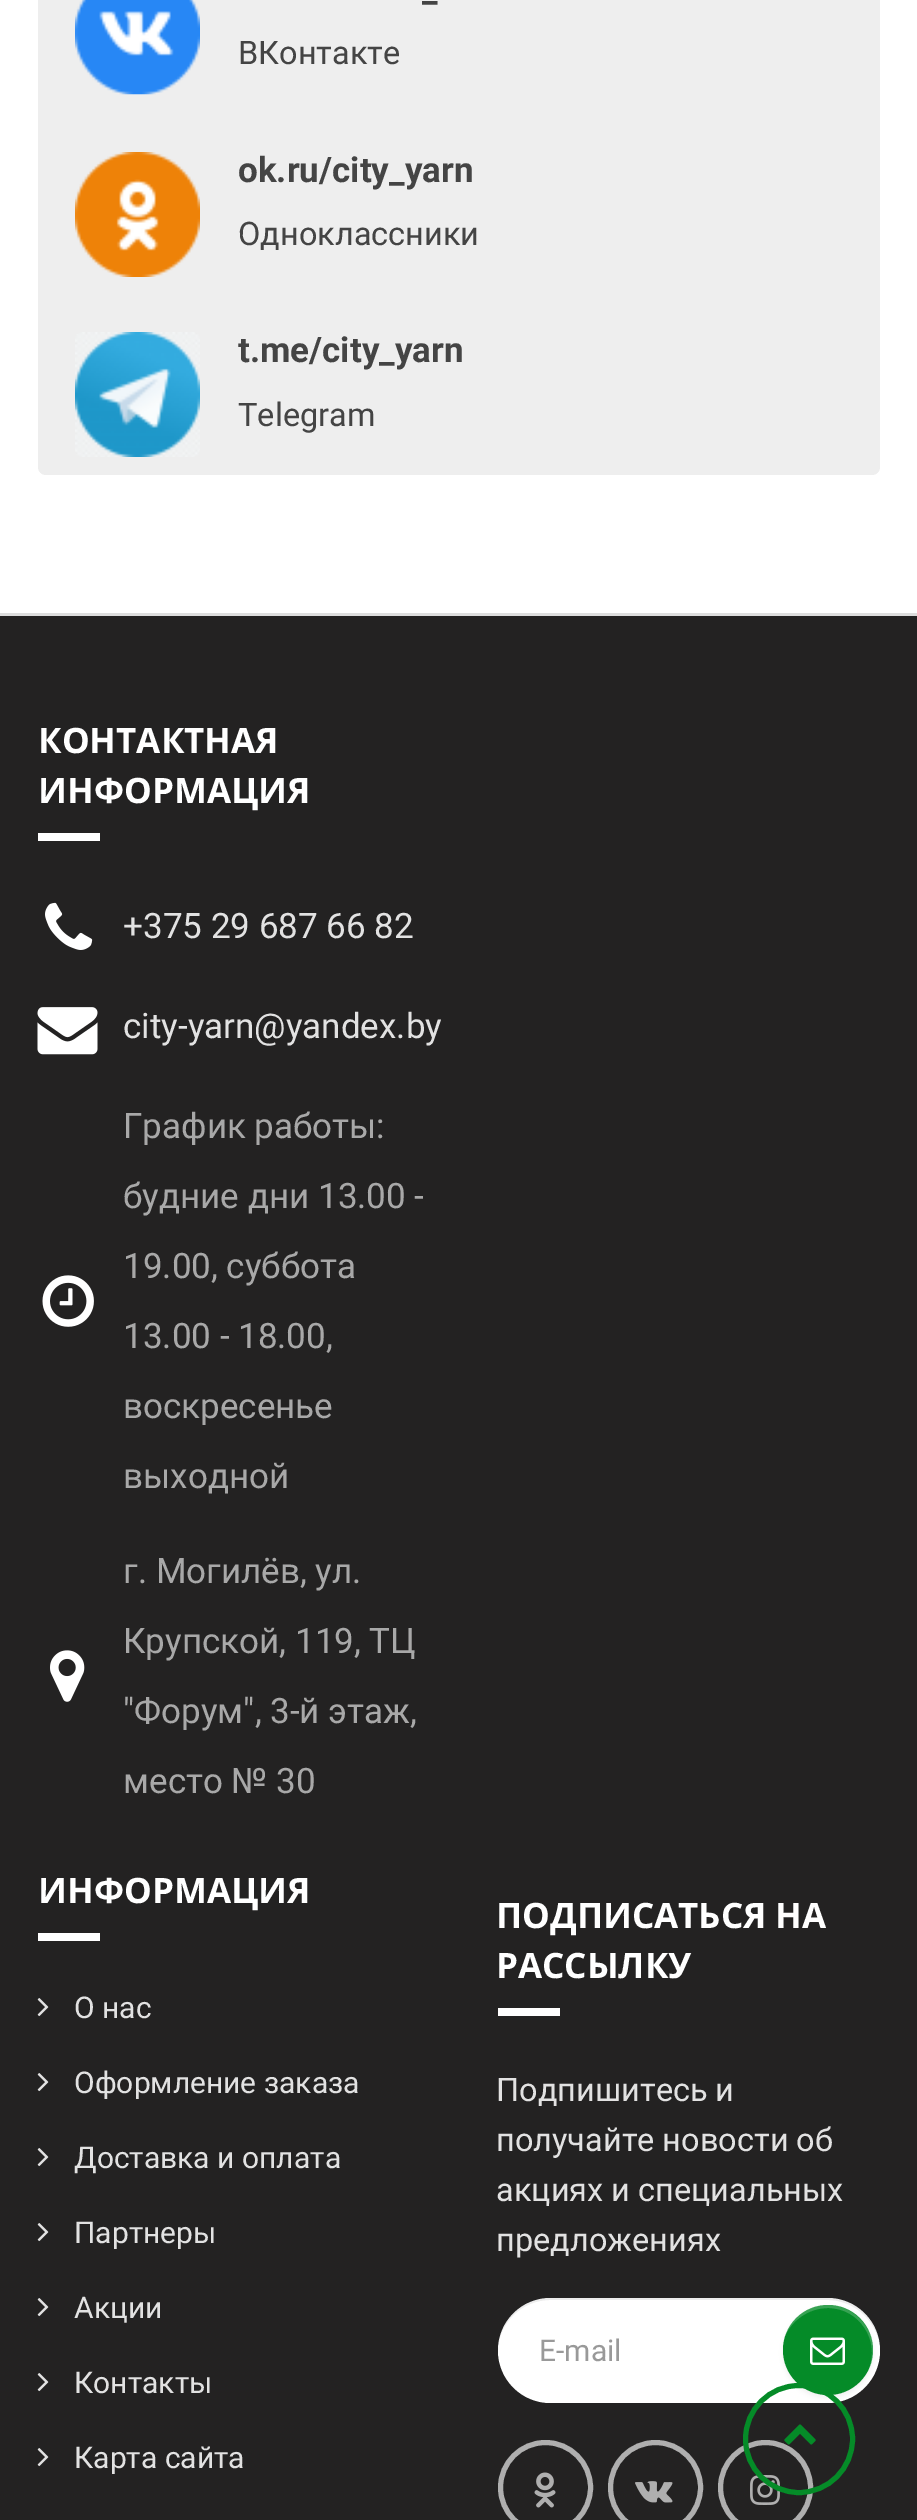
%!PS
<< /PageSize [917 2520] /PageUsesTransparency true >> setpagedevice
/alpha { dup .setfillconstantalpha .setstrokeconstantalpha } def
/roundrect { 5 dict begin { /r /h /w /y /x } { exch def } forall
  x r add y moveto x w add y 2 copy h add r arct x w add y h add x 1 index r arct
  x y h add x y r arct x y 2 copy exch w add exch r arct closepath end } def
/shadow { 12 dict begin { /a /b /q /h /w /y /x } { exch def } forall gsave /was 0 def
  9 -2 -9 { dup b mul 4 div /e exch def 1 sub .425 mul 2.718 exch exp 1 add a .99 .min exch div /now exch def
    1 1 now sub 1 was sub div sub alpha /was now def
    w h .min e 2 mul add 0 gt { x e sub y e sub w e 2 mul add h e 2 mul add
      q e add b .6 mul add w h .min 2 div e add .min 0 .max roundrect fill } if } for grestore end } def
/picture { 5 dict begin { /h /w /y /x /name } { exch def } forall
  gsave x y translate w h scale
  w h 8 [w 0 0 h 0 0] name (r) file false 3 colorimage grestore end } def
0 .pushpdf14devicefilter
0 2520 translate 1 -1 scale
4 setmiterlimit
1 setgray
0 0 917 2520 rectfill
0.933 setgray
38 -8 842 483 8 roundrect fill
(img1.rgb) 75 0 125 95 picture
/Roboto-Bold [35 0 0 -35 0 0] selectfont
0.267 setgray
422 1 moveto (_) show
/Roboto-Regular [32.5 0 0 -32.5 0 0] selectfont
238 64 moveto (ВКонтакте) show
(img2.rgb) 75 152 125 125 picture
/Roboto-Bold [35 0 0 -35 0 0] selectfont
238 182 moveto (ok.ru/city_yarn) show
/Roboto-Regular [32.5 0 0 -32.5 0 0] selectfont
238 245 moveto (Одноклассники) show
(img3.rgb) 75 332 125 125 picture
/Roboto-Bold [35 0 0 -35 0 0] selectfont
238 362 moveto (t.me/city_yarn) show
/Roboto-Regular [32.5 0 0 -32.5 0 0] selectfont
238 426 moveto (Telegram) show
0.137 0.133 0.133 setrgbcolor
0 616 917 1904 rectfill
0.867 setgray
0 613 917 3 rectfill
/OpenSans-Bold [35 0 0 -35 0 0] selectfont
1 setgray
38 753 moveto (КОНТАКТНАЯ) show
38 803 moveto (ИНФОРМАЦИЯ) show
38 833 62 8 rectfill
(img4.rgb) 45 902 48 48 picture
/Roboto-Regular [35 0 0 -35 0 0] selectfont
0.886 setgray
123 938 moveto (+375 29 687 66 82) show
(img5.rgb) 37 1007 61 48 picture
123 1038 moveto (city-yarn@yandex.by) show
0.659 setgray
123 1138 moveto (График работы:) show
123 1208 moveto (будние дни 13.00 -) show
123 1278 moveto (19.00, суббота) show
(img6.rgb) 42 1275 52 52 picture
123 1348 moveto (13.00 - 18.00,) show
123 1418 moveto (воскресенье) show
123 1488 moveto (выходной) show
123 1583 moveto (г. Могилёв, ул.) show
123 1653 moveto (Крупской, 119, ТЦ) show
(img7.rgb) 50 1650 35 52 picture
123 1723 moveto ("Форум", 3-й этаж,) show
123 1793 moveto (место № 30) show
/OpenSans-Bold [35 0 0 -35 0 0] selectfont
1 setgray
38 1903 moveto (ИНФОРМАЦИЯ) show
38 1933 62 8 rectfill
(img8.rgb) 37 1998 12 19 picture
/Roboto-Regular [30 0 0 -30 0 0] selectfont
0.886 setgray
74 2018 moveto (О нас) show
(img8.rgb) 37 2073 12 19 picture
74 2093 moveto (Оформление заказа) show
(img8.rgb) 37 2148 12 19 picture
74 2168 moveto (Доставка и оплата) show
(img8.rgb) 37 2223 12 19 picture
74 2243 moveto (Партнеры) show
(img8.rgb) 37 2298 12 19 picture
74 2318 moveto (Акции) show
(img8.rgb) 37 2373 12 19 picture
74 2393 moveto (Контакты) show
(img8.rgb) 37 2448 12 19 picture
74 2468 moveto (Карта сайта) show
/OpenSans-Bold [35 0 0 -35 0 0] selectfont
1 setgray
496 1928 moveto (ПОДПИСАТЬСЯ НА) show
496 1978 moveto (РАССЫЛКУ) show
498 2008 62 8 rectfill
/Roboto-Regular [32.5 0 0 -32.5 0 0] selectfont
0.886 setgray
496 2101 moveto (Подпишитесь и) show
496 2151 moveto (получайте новости об) show
496 2201 moveto (акциях и специальных) show
496 2251 moveto (предложениях) show
1 setgray
498 2298 382 105 52.5 roundrect fill
0.07 alpha
0 setgray
newpath 550 2300 moveto 828 2300 lineto 856 2300 880 2324 880 2351 curveto 880 2350 lineto 880 2322 856 2298 828 2298 curveto 550 2298 lineto 522 2298 498 2322 498 2350 curveto 498 2351 lineto 498 2324 521 2300 550 2300 curveto closepath fill
/Roboto-Regular [30 0 0 -30 0 0] selectfont
1 alpha
0.6 setgray
539 2361 moveto (E-mail) show
0 setgray
783 2308 90 90 45 2.5 0.05 shadow
0.02 0.545 0.157 setrgbcolor
newpath 828 2350 45 0 360 arc closepath fill
0.2 alpha
1 setgray
newpath 828 2308 moveto 860 2308 880 2341 869 2369 curveto 888 2328 839 2286 801 2314 curveto 794 2319 788 2327 785 2336 curveto 792 2320 809 2308 828 2308 curveto closepath fill
1 alpha
(img9.rgb) 810 2337 35 28 picture
0.686 setgray
5 setlinewidth
newpath 545.5 2487.5 45 0 360 arc closepath stroke
(img10.rgb) 534 2472 22 36 picture
newpath 655.5 2487.5 45 0 360 arc closepath stroke
(img11.rgb) 635 2481 38 22 picture
newpath 765.5 2487.5 45 0 360 arc closepath stroke
(img12.rgb) 750 2475 30 30 picture
0.02 0.545 0.157 setrgbcolor
newpath 799 2439 53.5 0 360 arc closepath stroke
(img13.rgb) 784 2424 32 21 picture
.poppdf14devicefilter showpage
